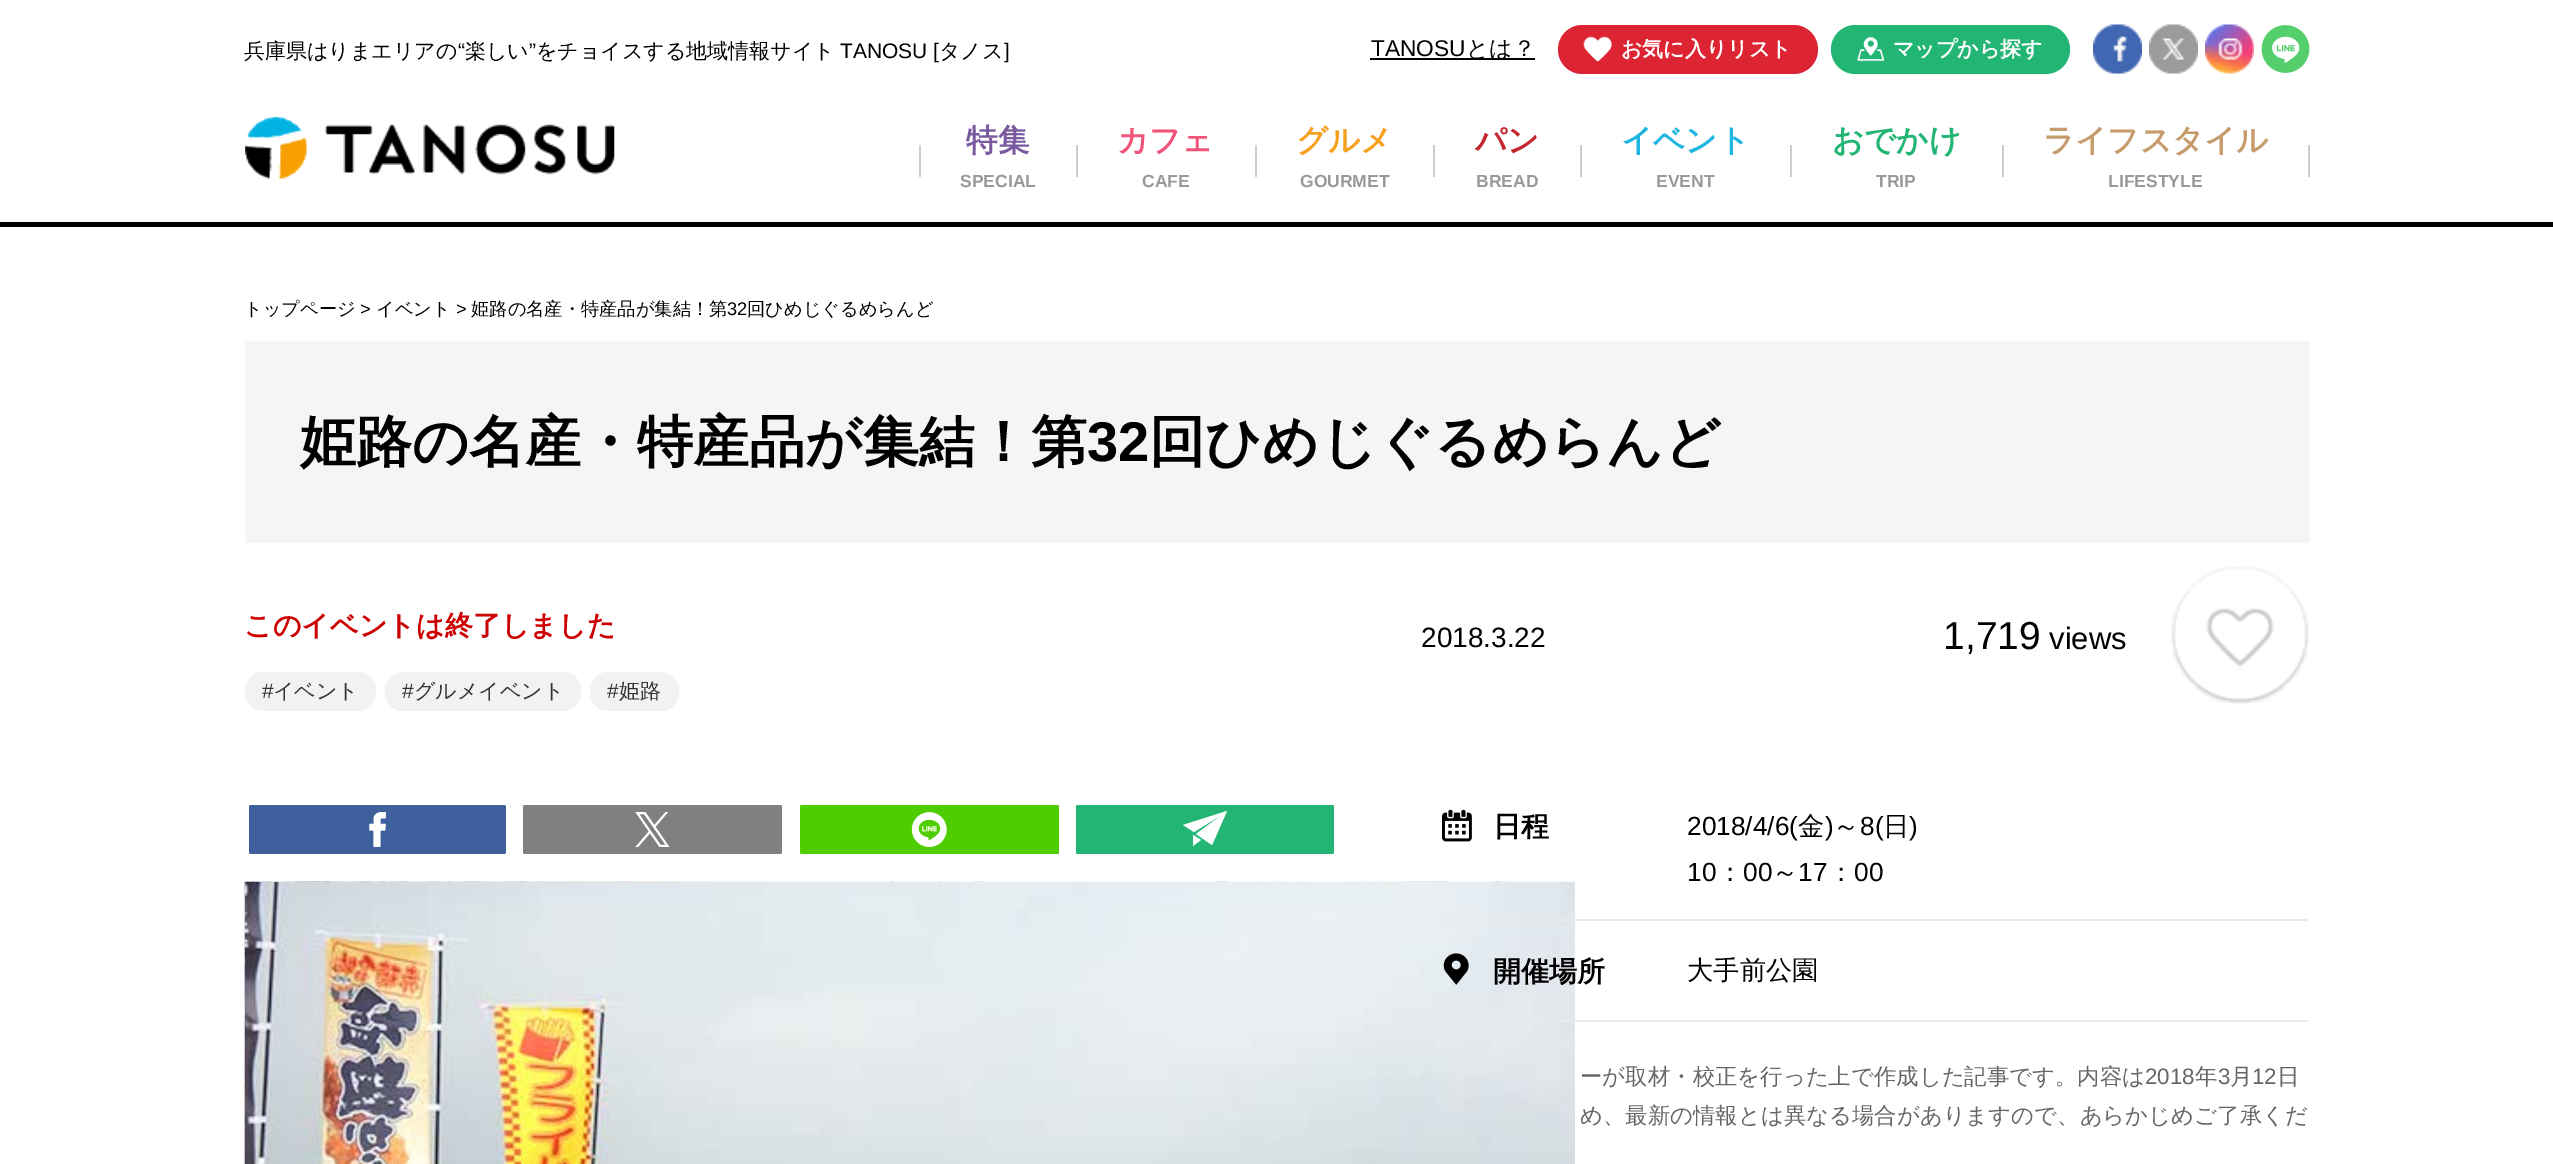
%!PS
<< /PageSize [2553 1164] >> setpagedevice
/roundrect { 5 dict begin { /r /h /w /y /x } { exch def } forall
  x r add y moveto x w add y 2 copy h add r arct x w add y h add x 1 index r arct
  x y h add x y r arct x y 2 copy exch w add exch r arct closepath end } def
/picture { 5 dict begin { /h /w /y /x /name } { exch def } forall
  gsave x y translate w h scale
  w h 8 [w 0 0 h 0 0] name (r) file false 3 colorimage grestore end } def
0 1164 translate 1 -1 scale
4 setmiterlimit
1 setgray
0 0 2553 1164 rectfill
0 setgray
0 222 2553 5 rectfill
/WenQuanYiZenHei-Medium [21 0 0 -21 0 0] selectfont
244 58 moveto (兵庫県はりまエリアの) show
/LiberationSans-Regular [21 0 0 -21 0 0] selectfont
458 58 moveto (“) show
/WenQuanYiZenHei-Medium [21 0 0 -21 0 0] selectfont
465 58 moveto (楽しい) show
/LiberationSans-Regular [21 0 0 -21 0 0] selectfont
529 58 moveto (”) show
/WenQuanYiZenHei-Medium [21 0 0 -21 0 0] selectfont
536 58 moveto (をチョイスする地域情報サイト) show
/LiberationSans-Regular [21 0 0 -21 0 0] selectfont
840 58 moveto (TANOSU [) show
/WenQuanYiZenHei-Medium [21 0 0 -21 0 0] selectfont
939 58 moveto (タノス) show
/LiberationSans-Regular [21 0 0 -21 0 0] selectfont
1004 58 moveto (]) show
/LiberationSans-Regular [22.75 0 0 -22.75 0 0] selectfont
1371 56 moveto (TANOSU) show
1370 58 165 2 rectfill
/WenQuanYiZenHei-Medium [22.75 0 0 -22.75 0 0] selectfont
1466 56 moveto (とは？) show
0.867 0.141 0.196 setrgbcolor
1558 25 260 49 24.5 roundrect fill
(img1.rgb) 1583 36 29 26 picture
/WenQuanYiZenHei-Bold [21 0 0 -21 0 0] selectfont
1 setgray
1621 56 moveto (お気に入りリスト) show
0.133 0.71 0.451 setrgbcolor
1831 25 239 49 24.5 roundrect fill
(img2.rgb) 1857 36 28 26 picture
1 setgray
1893 56 moveto (マップから探す) show
(img3.rgb) 2093 24 49 50 picture
(img4.rgb) 2149 24 49 50 picture
(img5.rgb) 2205 24 49 50 picture
(img6.rgb) 2261 25 49 48 picture
(img7.rgb) 245 117 370 62 picture
/WenQuanYiZenHei-Bold [31.5 0 0 -31.5 0 0] selectfont
0.478 0.353 0.62 setrgbcolor
966 151 moveto (特集) show
0.8 setgray
919 145 2 32 rectfill
/LiberationSans-Bold [17.5 0 0 -17.5 0 0] selectfont
0.6 setgray
960 187 moveto (SPECIAL) show
/WenQuanYiZenHei-Bold [31.5 0 0 -31.5 0 0] selectfont
0.941 0.333 0.475 setrgbcolor
1117 151 moveto (カフェ) show
0.8 setgray
1076 145 2 32 rectfill
/LiberationSans-Bold [17.5 0 0 -17.5 0 0] selectfont
0.6 setgray
1142 187 moveto (CAFE) show
/WenQuanYiZenHei-Bold [31.5 0 0 -31.5 0 0] selectfont
0.969 0.627 0.118 setrgbcolor
1296 151 moveto (グルメ) show
0.8 setgray
1255 145 2 32 rectfill
/LiberationSans-Bold [17.5 0 0 -17.5 0 0] selectfont
0.6 setgray
1300 187 moveto (GOURMET) show
/WenQuanYiZenHei-Bold [31.5 0 0 -31.5 0 0] selectfont
0.757 0.153 0.176 setrgbcolor
1475 151 moveto (パン) show
0.8 setgray
1433 145 2 32 rectfill
/LiberationSans-Bold [17.5 0 0 -17.5 0 0] selectfont
0.6 setgray
1476 187 moveto (BREAD) show
/WenQuanYiZenHei-Bold [31.5 0 0 -31.5 0 0] selectfont
0.122 0.714 0.886 setrgbcolor
1621 151 moveto (イベント) show
0.8 setgray
1580 145 2 32 rectfill
/LiberationSans-Bold [17.5 0 0 -17.5 0 0] selectfont
0.6 setgray
1656 187 moveto (EVENT) show
0.8 setgray
1790 145 2 32 rectfill
/WenQuanYiZenHei-Bold [31.5 0 0 -31.5 0 0] selectfont
0.133 0.71 0.451 setrgbcolor
1832 151 moveto (おでかけ) show
/LiberationSans-Bold [17.5 0 0 -17.5 0 0] selectfont
0.6 setgray
1876 187 moveto (TRIP) show
/WenQuanYiZenHei-Bold [31.5 0 0 -31.5 0 0] selectfont
0.776 0.612 0.427 setrgbcolor
2043 151 moveto (ライフスタイル) show
0.8 setgray
2002 145 2 32 rectfill
2308 145 2 32 rectfill
/LiberationSans-Bold [17.5 0 0 -17.5 0 0] selectfont
0.6 setgray
2108 187 moveto (LIFESTYLE) show
/WenQuanYiZenHei-Medium [18.25 0 0 -18.25 0 0] selectfont
0 setgray
244 315 moveto (トップページ) show
/LiberationSans-Regular [18.25 0 0 -18.25 0 0] selectfont
360 315 moveto (>) show
/WenQuanYiZenHei-Medium [18.25 0 0 -18.25 0 0] selectfont
376 315 moveto (イベント) show
/LiberationSans-Regular [18.25 0 0 -18.25 0 0] selectfont
456 315 moveto (>) show
/WenQuanYiZenHei-Medium [18.25 0 0 -18.25 0 0] selectfont
471 315 moveto (姫路の名産・特産品が集結！第) show
/LiberationSans-Regular [18.25 0 0 -18.25 0 0] selectfont
727 315 moveto (32) show
/WenQuanYiZenHei-Medium [18.25 0 0 -18.25 0 0] selectfont
747 315 moveto (回ひめじぐるめらんど) show
0.961 setgray
245 341 2065 202 rectfill
/WenQuanYiZenHei-Bold [56 0 0 -56 0 0] selectfont
0 setgray
300 461 moveto (姫路の名産・特産品が集結！第) show
/LiberationSans-Bold [56 0 0 -56 0 0] selectfont
1087 461 moveto (32) show
/WenQuanYiZenHei-Bold [56 0 0 -56 0 0] selectfont
1149 461 moveto (回ひめじぐるめらんど) show
/WenQuanYiZenHei-Bold [28 0 0 -28 0 0] selectfont
0.8 0 0 setrgbcolor
244 635 moveto (このイベントは終了しました) show
0.949 setgray
245 672 131 39 18 roundrect fill
/LiberationSans-Regular [21 0 0 -21 0 0] selectfont
0.2 setgray
262 698 moveto (#) show
/WenQuanYiZenHei-Medium [21 0 0 -21 0 0] selectfont
273 698 moveto (イベント) show
0.949 setgray
385 672 196 39 18 roundrect fill
/LiberationSans-Regular [21 0 0 -21 0 0] selectfont
0.2 setgray
402 698 moveto (#) show
/WenQuanYiZenHei-Medium [21 0 0 -21 0 0] selectfont
414 698 moveto (グルメイベント) show
0.949 setgray
590 672 89 39 18 roundrect fill
/LiberationSans-Regular [21 0 0 -21 0 0] selectfont
0.2 setgray
607 698 moveto (#) show
/WenQuanYiZenHei-Medium [21 0 0 -21 0 0] selectfont
619 698 moveto (姫路) show
/LiberationSans-Regular [28 0 0 -28 0 0] selectfont
0 setgray
1421 647 moveto (2018.3.22) show
/LiberationSans-Regular [39 0 0 -39 0 0] selectfont
1943 649 moveto (1,719) show
/LiberationSans-Regular [31 0 0 -31 0 0] selectfont
2049 649 moveto (views) show
(img8.rgb) 2171 566 138 138 picture
0.243 0.38 0.616 setrgbcolor
249 805 257 49 2 roundrect fill
(img9.rgb) 369 812 17 35 picture
0.502 setgray
523 805 259 49 2 roundrect fill
(img10.rgb) 635 812 35 35 picture
0.306 0.804 0 setrgbcolor
800 805 259 49 2 roundrect fill
(img11.rgb) 911 812 36 35 picture
0.133 0.71 0.451 setrgbcolor
1076 805 258 49 2 roundrect fill
1 setgray
newpath 1212 845 moveto 1196 834 lineto 1223 814 lineto 1194 832 lineto 1183 825 lineto 1227 811 lineto closepath 1193 846 moveto 1193 835 lineto 1201 840 lineto closepath fill
(img12.rgb) 244 881 1331 283 picture
(img13.rgb) 244 881 1331 283 picture
(img14.rgb) 244 881 1331 283 picture
(img15.rgb) 244 881 1331 283 picture
(img16.rgb) 245 882 1330 282 picture
(img17.rgb) 1442 809 30 33 picture
/WenQuanYiZenHei-Bold [28 0 0 -28 0 0] selectfont
0 setgray
1493 836 moveto (日程) show
0.918 setgray
1421 919 887 2 rectfill
/LiberationSans-Regular [26.25 0 0 -26.25 0 0] selectfont
0 setgray
1687 835 moveto (2018/4/6\() show
/WenQuanYiZenHei-Medium [26.25 0 0 -26.25 0 0] selectfont
1798 835 moveto (金) show
/LiberationSans-Regular [26.25 0 0 -26.25 0 0] selectfont
1825 835 moveto (\)) show
/WenQuanYiZenHei-Medium [26.25 0 0 -26.25 0 0] selectfont
1833 835 moveto (～) show
/LiberationSans-Regular [26.25 0 0 -26.25 0 0] selectfont
1860 835 moveto (8\() show
/WenQuanYiZenHei-Medium [26.25 0 0 -26.25 0 0] selectfont
1883 835 moveto (日) show
/LiberationSans-Regular [26.25 0 0 -26.25 0 0] selectfont
1909 835 moveto (\)) show
1687 881 moveto (10) show
/WenQuanYiZenHei-Medium [26.25 0 0 -26.25 0 0] selectfont
1717 881 moveto (：) show
/LiberationSans-Regular [26.25 0 0 -26.25 0 0] selectfont
1743 881 moveto (00) show
/WenQuanYiZenHei-Medium [26.25 0 0 -26.25 0 0] selectfont
1772 881 moveto (～) show
/LiberationSans-Regular [26.25 0 0 -26.25 0 0] selectfont
1798 881 moveto (17) show
/WenQuanYiZenHei-Medium [26.25 0 0 -26.25 0 0] selectfont
1828 881 moveto (：) show
/LiberationSans-Regular [26.25 0 0 -26.25 0 0] selectfont
1854 881 moveto (00) show
(img18.rgb) 1443 953 26 32 picture
/WenQuanYiZenHei-Bold [28 0 0 -28 0 0] selectfont
1493 981 moveto (開催場所) show
0.918 setgray
1421 1020 887 2 rectfill
/WenQuanYiZenHei-Medium [26.25 0 0 -26.25 0 0] selectfont
0 setgray
1687 979 moveto (大手前公園) show
/WenQuanYiZenHei-Medium [22.4 0 0 -22.4 0 0] selectfont
0.4 setgray
1580 1084 moveto (ーが取材・校正を行った上で作成した記事です。内容は) show
/LiberationSans-Regular [22.4 0 0 -22.4 0 0] selectfont
2145 1084 moveto (2018) show
/WenQuanYiZenHei-Medium [22.4 0 0 -22.4 0 0] selectfont
2195 1084 moveto (年) show
/LiberationSans-Regular [22.4 0 0 -22.4 0 0] selectfont
2218 1084 moveto (3) show
/WenQuanYiZenHei-Medium [22.4 0 0 -22.4 0 0] selectfont
2230 1084 moveto (月) show
/LiberationSans-Regular [22.4 0 0 -22.4 0 0] selectfont
2252 1084 moveto (12) show
/WenQuanYiZenHei-Medium [22.4 0 0 -22.4 0 0] selectfont
2277 1084 moveto (日) show
1580 1123 moveto (め、最新の情報とは異なる場合がありますので、あらかじめご了承くだ) show
showpage
